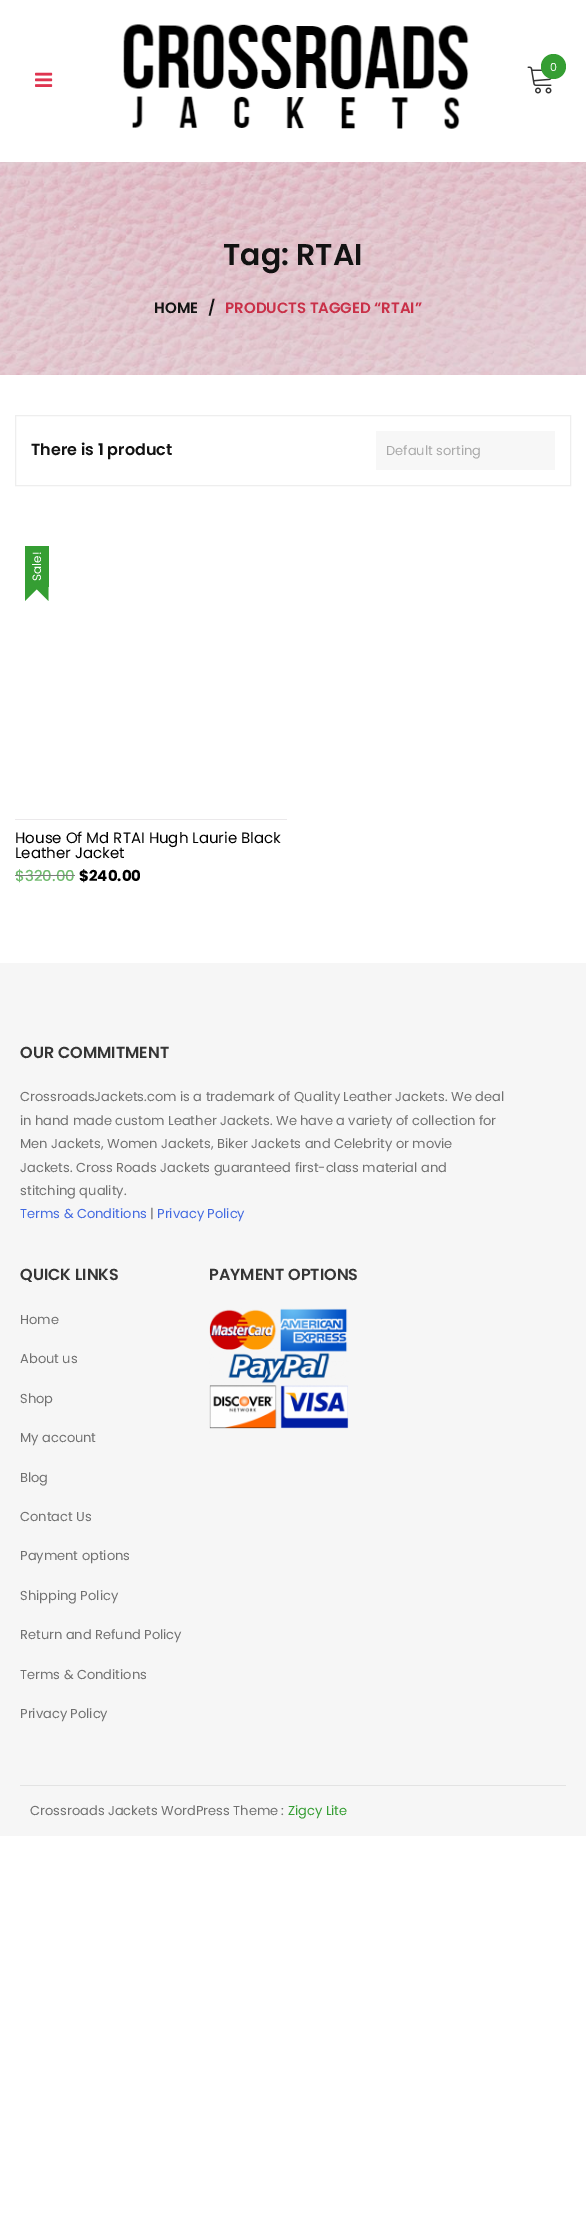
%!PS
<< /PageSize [586 2222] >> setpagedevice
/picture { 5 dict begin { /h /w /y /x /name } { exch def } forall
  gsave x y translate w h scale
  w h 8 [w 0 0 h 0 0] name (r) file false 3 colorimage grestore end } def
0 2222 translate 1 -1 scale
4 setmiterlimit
1 setgray
0 0 586 2222 rectfill
(img1.rgb) 123 24 346 105 picture
(img2.rgb) 527 66 25 28 picture
0.208 0.62 0.2 setrgbcolor
newpath 553.5 66.5 12.5 0 360 arc closepath fill
/Poppins-Regular [11 0 0 -11 0 0] selectfont
1 setgray
550 71 moveto (0) show
(img3.rgb) 35 72 18 15 picture
(img4.rgb) 0 162 586 213 picture
/Poppins-SemiBold [30 0 0 -30 0 0] selectfont
0.071 setgray
223 265 moveto (Tag: RTAI) show
/Poppins-SemiBold [15 0 0 -15 0 0] selectfont
154 313 moveto (HOME) show
208 313 moveto (/) show
0.788 0.188 0.282 setrgbcolor
225 313 moveto (PRODUCTS TAGGED “RTAI”) show
0.933 setgray
15.5 415.5 555 70 rectstroke
/Poppins-SemiBold [16 0 0 -16 0 0] selectfont
0.071 setgray
31 455 moveto (There is 1 product) show
0.969 setgray
376 431 179 39 rectfill
/Poppins-Regular [13 0 0 -13 0 0] selectfont
0.663 setgray
386 455 moveto (Default sorting) show
0.208 0.62 0.2 setrgbcolor
25 546 24 41 rectfill
/Poppins-Regular [12 0 0 -12 0 0] selectfont
1 setgray
gsave 41 581 translate -90 rotate 0 0 moveto (Sale!) show grestore
0.208 0.62 0.2 setrgbcolor
newpath 25 601 moveto 25 575 lineto 38 588 lineto closepath fill
newpath 48.5 575 moveto 48.5 601 lineto 35.5 588 lineto closepath fill
0.922 0.914 0.922 setrgbcolor
15 819 272 1 rectfill
/Poppins-Regular [15 0 0 -15 0 0] selectfont
0.004 setgray
15 843 moveto (House Of Md RTAI Hugh Laurie Black) show
15 858 moveto (Leather Jacket) show
/Poppins-Medium [15 0 0 -15 0 0] selectfont
0.447 0.733 0.439 setrgbcolor
15 881 moveto ($320.00) show
0.486 setgray
15 875 60 1 rectfill
/Poppins-Bold [15 0 0 -15 0 0] selectfont
0.004 setgray
79 881 moveto ($240.00) show
0.965 setgray
0 963 586 873 rectfill
0.89 setgray
20 1785 546 1 rectfill
/Poppins-SemiBold [16 0 0 -16 0 0] selectfont
0.208 setgray
20 1058 moveto (OUR COMMITMENT) show
/Poppins-Regular [13 0 0 -13 0 0] selectfont
0.439 setgray
20 1101 moveto (CrossroadsJackets.com is a trademark of Quality Leather Jackets. We deal) show
20 1125 moveto (in hand made custom Leather Jackets. We have a variety of collection for) show
20 1148 moveto (Men Jackets, Women Jackets, Biker Jackets and Celebrity or movie) show
20 1172 moveto (Jackets. Cross Roads Jackets guaranteed first-class material and) show
20 1195 moveto (stitching quality.) show
0.255 0.412 0.882 setrgbcolor
20 1218 moveto (Terms & Conditions) show
0.439 setgray
150 1218 moveto (|) show
0.255 0.412 0.882 setrgbcolor
157 1218 moveto (Privacy Policy) show
/Poppins-SemiBold [16 0 0 -16 0 0] selectfont
0.208 setgray
20 1280 moveto (QUICK LINKS) show
/Poppins-Regular [13 0 0 -13 0 0] selectfont
0.439 setgray
20 1324 moveto (Home) show
20 1363 moveto (About us) show
20 1403 moveto (Shop) show
20 1442 moveto (My account) show
20 1482 moveto (Blog) show
20 1521 moveto (Contact Us) show
20 1560 moveto (Payment options) show
20 1600 moveto (Shipping Policy) show
20 1639 moveto (Return and Refund Policy) show
20 1679 moveto (Terms & Conditions) show
20 1718 moveto (Privacy Policy) show
/Poppins-SemiBold [16 0 0 -16 0 0] selectfont
0.208 setgray
209 1280 moveto (PAYMENT OPTIONS) show
(img5.rgb) 209 1308 140 121 picture
/Poppins-Regular [13 0 0 -13 0 0] selectfont
0.439 setgray
30 1815 moveto (Crossroads Jackets WordPress Theme :) show
0.208 0.62 0.2 setrgbcolor
288 1815 moveto (Zigcy Lite) show
showpage
